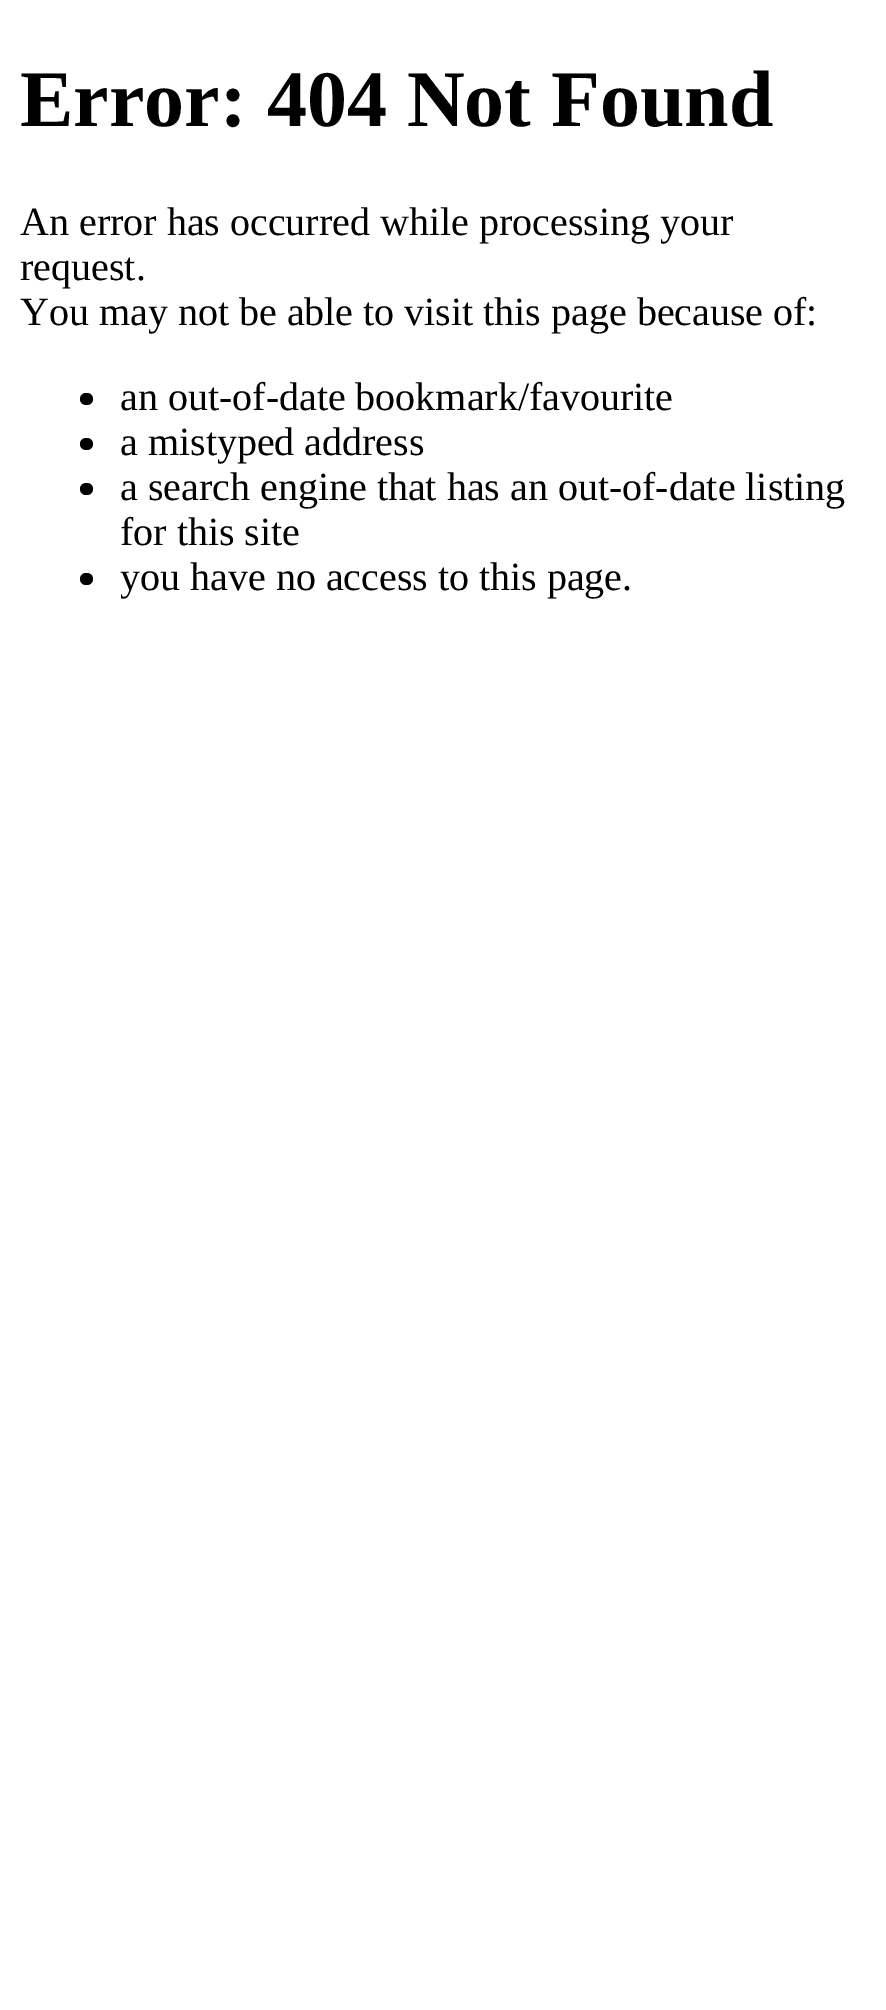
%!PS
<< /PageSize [886 2010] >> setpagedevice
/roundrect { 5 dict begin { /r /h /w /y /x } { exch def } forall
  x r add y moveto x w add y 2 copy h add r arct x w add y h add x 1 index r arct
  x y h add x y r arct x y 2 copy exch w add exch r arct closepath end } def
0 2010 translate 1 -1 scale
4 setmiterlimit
1 setgray
0 0 886 2010 rectfill
/LiberationSerif-Bold [80 0 0 -80 0 0] selectfont
0 setgray
20 126 moveto (Error: 404 Not Found) show
/LiberationSerif-Regular [40 0 0 -40 0 0] selectfont
20 235 moveto (An error has occurred while processing your) show
20 280 moveto (request.) show
20 325 moveto (You may not be able to visit this page because of:) show
80 393 13 12 6 roundrect fill
120 410 moveto (an out-of-date bookmark/favourite) show
80 438 13 12 6 roundrect fill
120 455 moveto (a mistyped address) show
80 483 13 12 6 roundrect fill
120 500 moveto (a search engine that has an out-of-date listing) show
120 545 moveto (for this site) show
80 573 13 12 6 roundrect fill
120 590 moveto (you have no access to this page.) show
showpage
